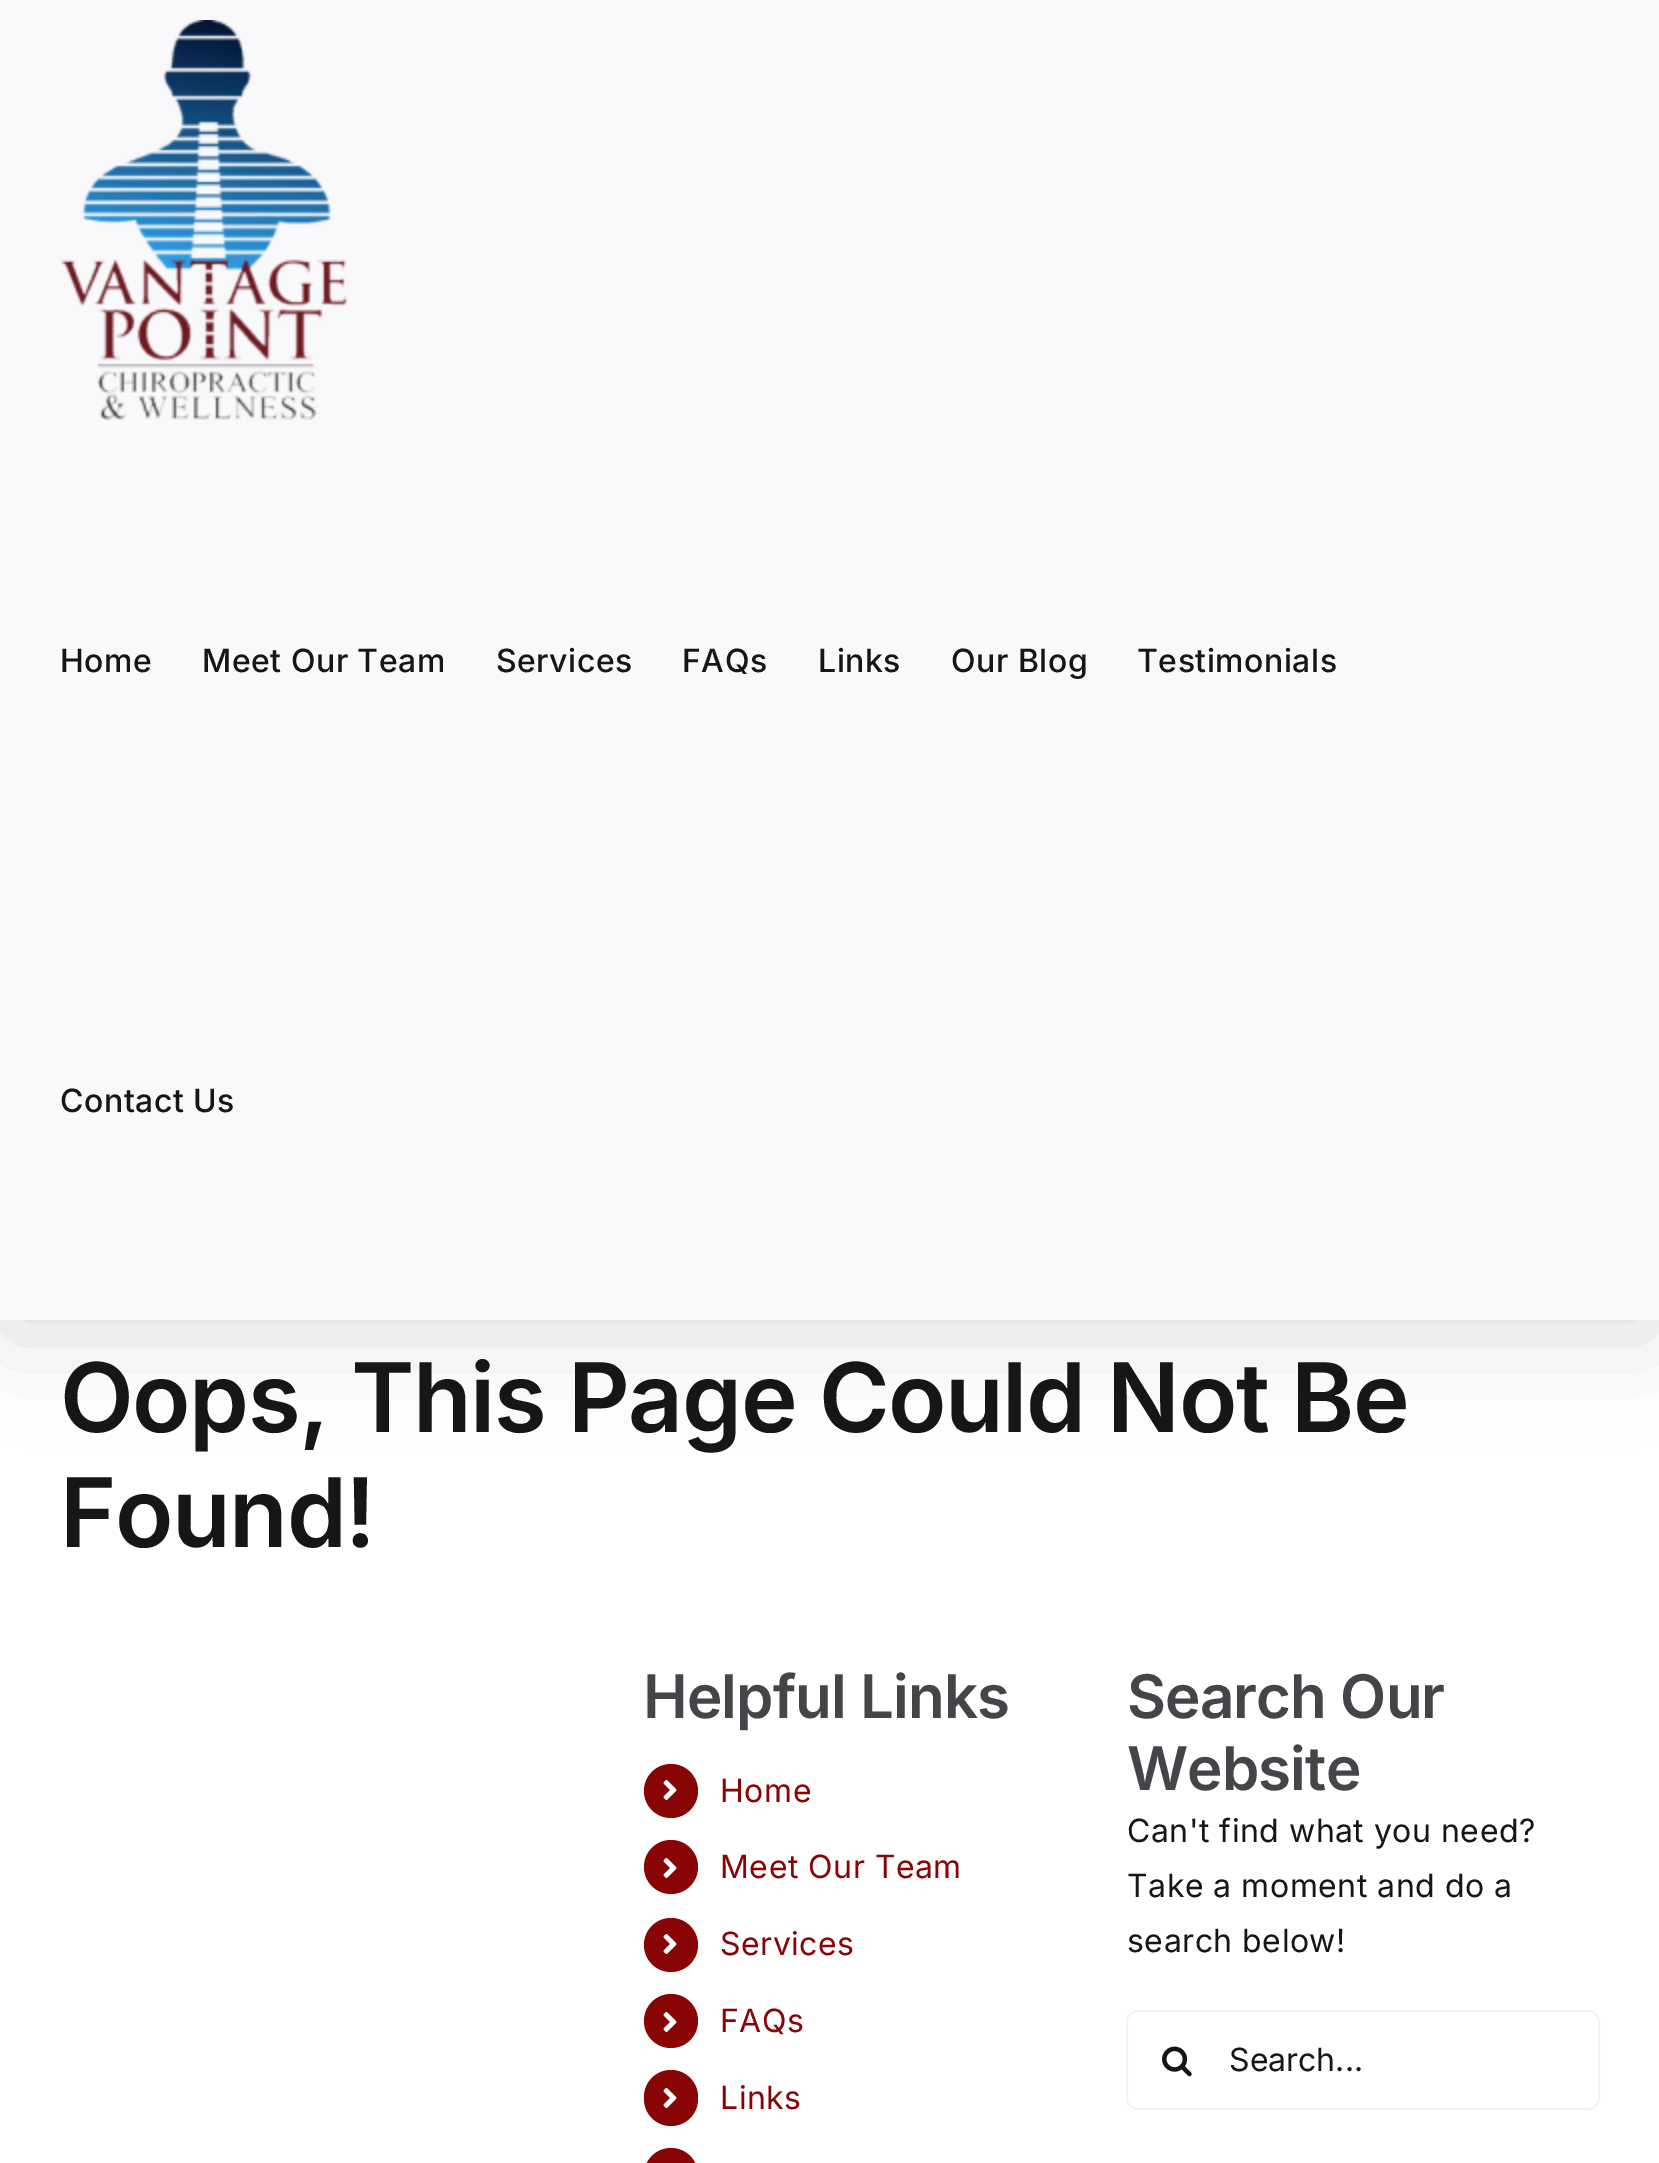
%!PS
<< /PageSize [1659 2163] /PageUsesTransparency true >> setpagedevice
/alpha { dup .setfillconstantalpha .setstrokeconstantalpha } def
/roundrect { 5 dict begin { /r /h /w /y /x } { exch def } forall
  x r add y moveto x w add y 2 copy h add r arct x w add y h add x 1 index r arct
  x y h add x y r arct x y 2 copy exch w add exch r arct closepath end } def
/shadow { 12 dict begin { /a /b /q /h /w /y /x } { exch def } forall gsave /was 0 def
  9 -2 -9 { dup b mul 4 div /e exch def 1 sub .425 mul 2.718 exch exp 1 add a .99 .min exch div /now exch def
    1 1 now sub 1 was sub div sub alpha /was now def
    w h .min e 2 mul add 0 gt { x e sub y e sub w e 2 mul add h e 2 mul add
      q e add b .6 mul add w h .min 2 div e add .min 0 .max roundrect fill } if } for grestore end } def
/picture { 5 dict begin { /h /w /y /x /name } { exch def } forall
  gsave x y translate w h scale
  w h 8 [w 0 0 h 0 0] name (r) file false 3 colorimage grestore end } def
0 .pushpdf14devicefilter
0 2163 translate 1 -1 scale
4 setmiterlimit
1 setgray
0 0 1659 2163 rectfill
0 setgray
4 24 1652 1312 0 50 0.14 shadow
0.976 0.976 0.984 setrgbcolor
0 0 1659 1320 rectfill
(img1.rgb) 60 20 288 400 picture
/Inter-Medium [32 0 0 -32 0 0] selectfont
0.078 0.086 0.09 setrgbcolor
60 672 moveto 0.5 0 (Home) ashow
202 672 moveto 0.5 0 (Meet Our Team) ashow
496 672 moveto 0.5 0 (Services) ashow
682 672 moveto 0.5 0 (FAQs) ashow
818 672 moveto 0.5 0 (Links) ashow
951 672 moveto 0.5 0 (Our Blog) ashow
1137 672 moveto 0.5 0 (Testimonials) ashow
60 1112 moveto 0.5 0 (Contact Us) ashow
/Inter-SemiBold [96 0 0 -96 0 0] selectfont
60 1432 moveto -1.45 0 (Oops, This Page Could Not Be) ashow
60 1547 moveto -1.45 0 (Found!) ashow
/Inter-SemiBold [60 0 0 -60 0 0] selectfont
0.263 0.271 0.286 setrgbcolor
643 1718 moveto -0.9 0 (Helpful Links) ashow
0.537 0.02 0.02 setrgbcolor
newpath 671 1791 27 0 360 arc closepath fill
(img2.rgb) 663 1780 14 20 picture
/Inter-Regular [32 0 0 -32 0 0] selectfont
720 1802 moveto 0.5 0 (Home) ashow
newpath 671 1867 27 0 360 arc closepath fill
(img2.rgb) 663 1858 14 20 picture
720 1878 moveto 0.5 0 (Meet Our Team) ashow
newpath 671 1945 27 0 360 arc closepath fill
(img2.rgb) 663 1934 14 20 picture
720 1955 moveto 0.5 0 (Services) ashow
newpath 671 2021 27 0 360 arc closepath fill
(img2.rgb) 663 2012 14 20 picture
720 2032 moveto 0.5 0 (FAQs) ashow
644 2070 54 56 27 roundrect fill
(img2.rgb) 663 2088 14 20 picture
720 2109 moveto 0.5 0 (Links) ashow
644 2148 54 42 27 roundrect fill
/Inter-SemiBold [60 0 0 -60 0 0] selectfont
0.263 0.271 0.286 setrgbcolor
1127 1718 moveto -0.9 0 (Search Our) ashow
1127 1790 moveto -0.9 0 (Website) ashow
/Inter-Regular [32 0 0 -32 0 0] selectfont
0.078 0.086 0.09 setrgbcolor
1127 1842 moveto 0.5 0 (Can't find what you need?) ashow
1127 1897 moveto 0.5 0 (Take a moment and do a) ashow
1127 1952 moveto 0.5 0 (search below!) ashow
0.949 0.953 0.961 setrgbcolor
2 setlinewidth
1127 2011 472 98 11 roundrect stroke
(img3.rgb) 1162 2046 30 31 picture
0.078 0.086 0.09 setrgbcolor
1229 2071 moveto (Search...) show
.poppdf14devicefilter showpage
